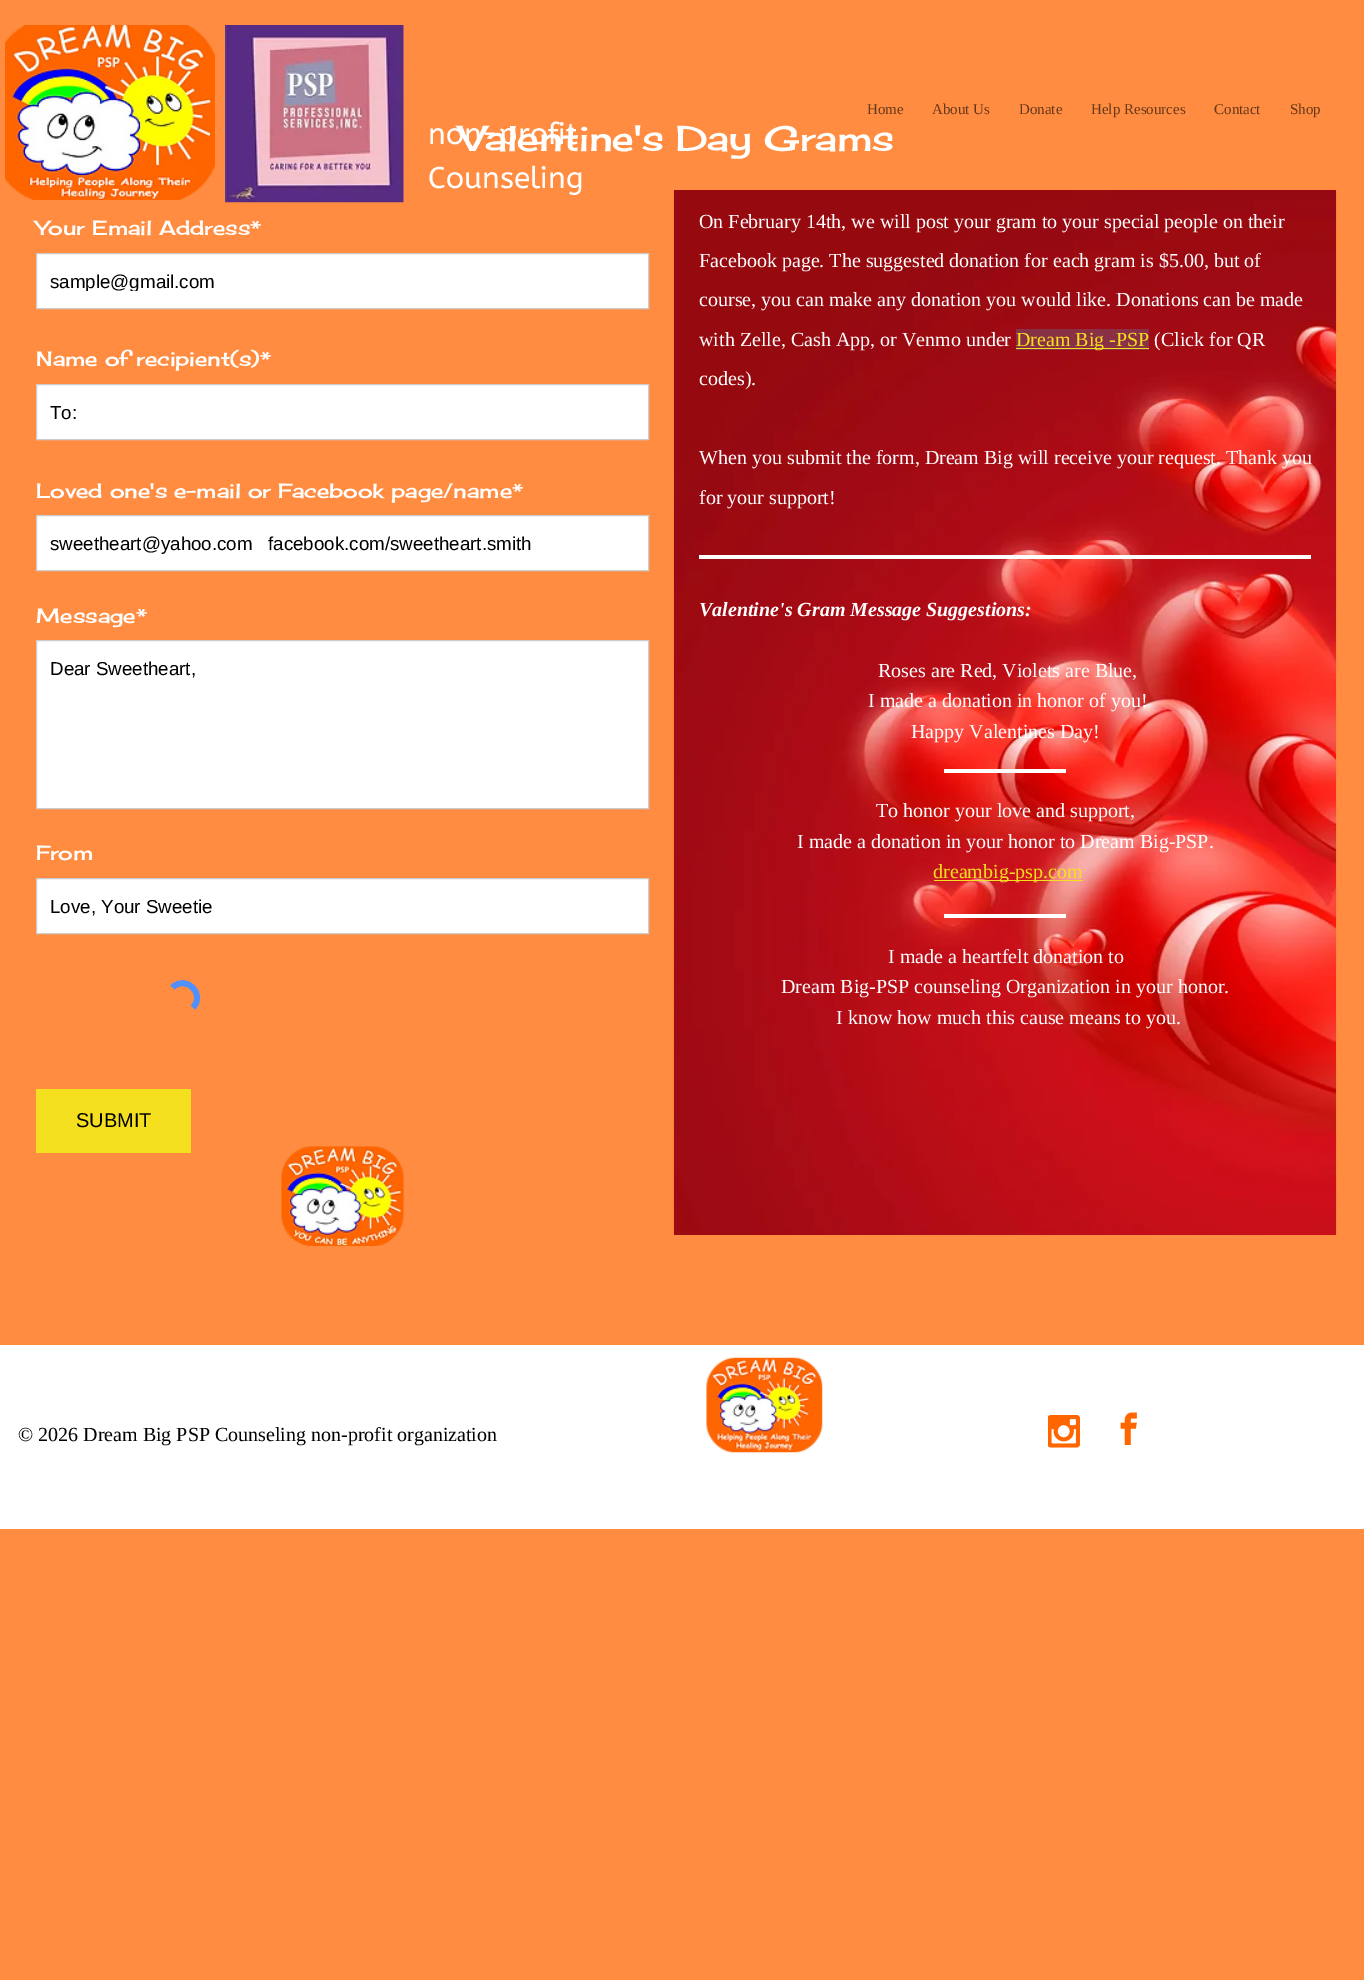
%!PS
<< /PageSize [1364 1980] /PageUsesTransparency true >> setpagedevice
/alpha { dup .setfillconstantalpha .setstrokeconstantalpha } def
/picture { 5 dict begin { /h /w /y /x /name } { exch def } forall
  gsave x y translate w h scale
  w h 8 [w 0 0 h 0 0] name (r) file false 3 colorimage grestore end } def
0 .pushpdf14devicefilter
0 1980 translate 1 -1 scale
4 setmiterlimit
1 0.549 0.251 setrgbcolor
0 0 1364 1980 rectfill
/LiberationSerif-Regular [15 0 0 -15 0 0] selectfont
0.4 0.22 0.102 setrgbcolor
867 114 moveto (Home) show
932 114 moveto (About Us) show
1019 114 moveto (Donate) show
1091 114 moveto (Help Resources) show
1214 114 moveto (Contact) show
1290 114 moveto (Shop) show
(img1.rgb) 5 25 210 175 picture
(img2.rgb) 225 25 179 178 picture
/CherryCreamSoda-Regular [35 0 0 -35 0 0] selectfont
1 setgray
460 151 moveto (Valentine's Day Grams) show
/ABeeZee-Regular [30 0 0 -30 0 0] selectfont
428 144 moveto (non-profit) show
428 188 moveto (Counseling) show
/CherryCreamSoda-Regular [20 0 0 -20 0 0] selectfont
36 235 moveto (Your Email Address*) show
newpath 36.5 253.5 moveto 648.5 253.5 lineto 648.5 308.5 lineto 36.5 308.5 lineto closepath gsave fill grestore
0.8 setgray
stroke
gsave
50 270 594 21 rectclip
/LiberationSans-Regular [18.75 0 0 -18.75 0 0] selectfont
0 setgray
50 288 moveto (sample@gmail.com) show
grestore
1 setgray
36 366 moveto (Name of recipient\(s\)*) show
newpath 36.5 384.5 moveto 648.5 384.5 lineto 648.5 439.5 lineto 36.5 439.5 lineto closepath gsave fill grestore
0.8 setgray
stroke
/LiberationSans-Regular [18.75 0 0 -18.75 0 0] selectfont
0 setgray
50 419 moveto (To:) show
/CherryCreamSoda-Regular [20 0 0 -20 0 0] selectfont
1 setgray
36 498 moveto (Loved one's e-mail or Facebook page/name*) show
newpath 36.5 515.5 moveto 648.5 515.5 lineto 648.5 570.5 lineto 36.5 570.5 lineto closepath gsave fill grestore
0.8 setgray
stroke
/LiberationSans-Regular [18.75 0 0 -18.75 0 0] selectfont
0 setgray
50 550 moveto (sweetheart@yahoo.com   facebook.com/sweetheart.smith) show
/CherryCreamSoda-Regular [20 0 0 -20 0 0] selectfont
1 setgray
36 623 moveto (Message*) show
newpath 36.5 640.5 moveto 648.5 640.5 lineto 648.5 808.5 lineto 36.5 808.5 lineto closepath gsave fill grestore
0.8 setgray
stroke
/LiberationSans-Regular [18.75 0 0 -18.75 0 0] selectfont
0 setgray
50 675 moveto (Dear Sweetheart,) show
/CherryCreamSoda-Regular [20 0 0 -20 0 0] selectfont
1 setgray
36 860 moveto (From) show
newpath 36.5 878.5 moveto 648.5 878.5 lineto 648.5 933.5 lineto 36.5 933.5 lineto closepath gsave fill grestore
0.8 setgray
stroke
/LiberationSans-Regular [18.75 0 0 -18.75 0 0] selectfont
0 setgray
50 913 moveto (Love, Your Sweetie) show
0.302 0.565 0.996 setrgbcolor
5.8 setlinewidth
newpath 172.5 987.5 moveto 186 974 206 994.5 193 1007.5 curveto stroke
0.961 0.878 0.122 setrgbcolor
36 1089 155 64 rectfill
/LiberationSans-Regular [20 0 0 -20 0 0] selectfont
0 setgray
76 1127 moveto (SUBMIT) show
(img3.rgb) 281 1146 123 101 picture
(img4.rgb) 673 190 664 1045 picture
/LiberationSerif-Regular [20 0 0 -20 0 0] selectfont
1 setgray
699 228 moveto (On February 14th, we will post your gram to your special people on their) show
699 267 moveto (Facebook page. The suggested donation for each gram is $5.00, but of) show
699 306 moveto (course, you can make any donation you would like. Donations can be made) show
699 346 moveto (with Zelle, Cash App, or Venmo under) show
0.25 alpha
0.267 0.635 0.867 setrgbcolor
1016 329 133 21 rectfill
1 alpha
0.961 0.878 0.122 setrgbcolor
1016 348 133 1 rectfill
1016 346 moveto (Dream Big -PSP) show
1 setgray
1154 346 moveto (\(Click for QR) show
699 385 moveto (codes\).) show
699 464 moveto (When you submit the form, Dream Big will receive your request. Thank you) show
699 504 moveto (for your support!) show
699 555 612 4 rectfill
/LiberationSerif-BoldItalic [20 0 0 -20 0 0] selectfont
699 616 moveto (Valentine's Gram Message Suggestions:) show
/LiberationSerif-Regular [20 0 0 -20 0 0] selectfont
878 677 moveto (Roses are Red, Violets are Blue,) show
868 707 moveto (I made a donation in honor of you!) show
911 738 moveto (Happy Valentines Day!) show
944 769 122 4 rectfill
876 817 moveto (To honor your love and support,) show
797 848 moveto (I made a donation in your honor to Dream Big-PSP.) show
0.961 0.878 0.122 setrgbcolor
934 880 149 1 rectfill
933 878 moveto (dreambig-psp.com) show
1 setgray
944 914 122 4 rectfill
888 963 moveto (I made a heartfelt donation to) show
781 993 moveto (Dream Big-PSP counseling Organization in your honor.) show
836 1024 moveto (I know how much this cause means to you.) show
0 1345 1364 184 rectfill
0 setgray
18 1441 moveto (© 2026 Dream Big PSP Counseling non-profit organization) show
(img5.rgb) 706 1357 117 96 picture
(img6.rgb) 1048 1415 32 33 picture
(img7.rgb) 1120 1412 17 33 picture
.poppdf14devicefilter showpage
